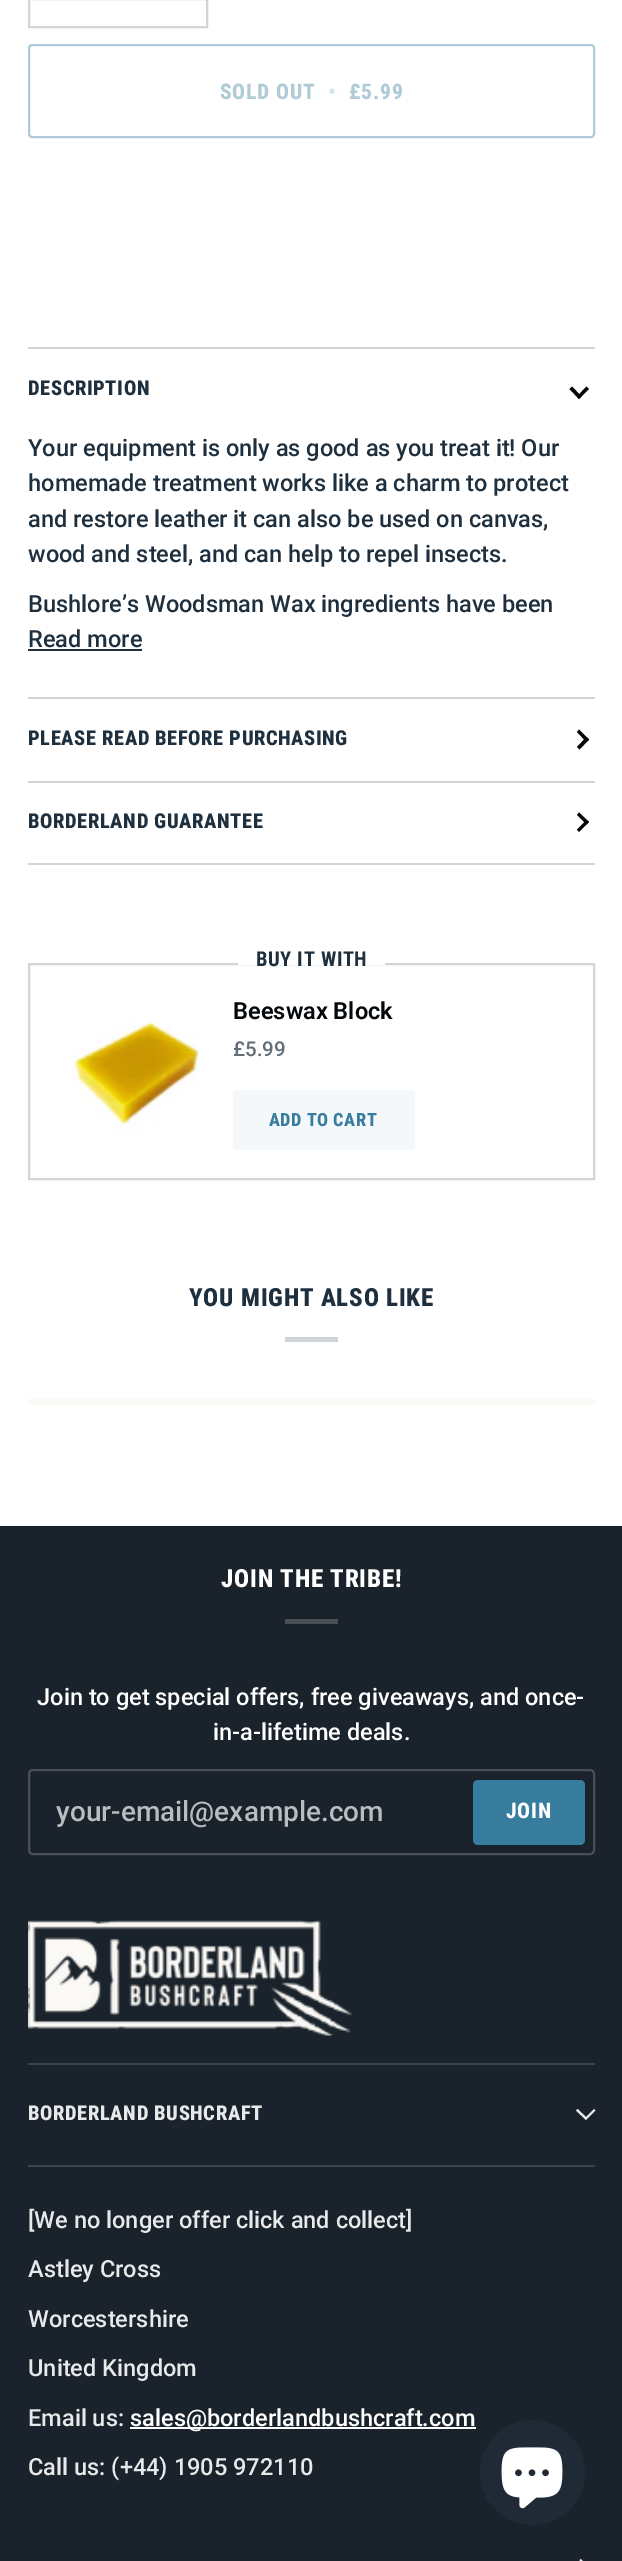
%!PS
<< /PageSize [622 2561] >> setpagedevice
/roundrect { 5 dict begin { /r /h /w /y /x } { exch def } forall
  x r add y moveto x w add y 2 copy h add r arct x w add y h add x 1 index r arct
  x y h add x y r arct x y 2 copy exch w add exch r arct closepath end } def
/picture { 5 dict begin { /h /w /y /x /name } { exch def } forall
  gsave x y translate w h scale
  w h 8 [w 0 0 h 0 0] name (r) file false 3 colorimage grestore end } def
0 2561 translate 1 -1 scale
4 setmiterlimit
1 setgray
0 0 622 2561 rectfill
0.824 0.835 0.847 setrgbcolor
2 setlinewidth
29 -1 178 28 rectstroke
0.686 0.796 0.847 setrgbcolor
29 45 565 92 3 roundrect stroke
/RobotoCondensed-ExtraBold [21.5 0 0 -21.5 0 0] selectfont
220 99 moveto 0.75 0 (SOLD OUT) ashow
0.843 0.898 0.925 setrgbcolor
328 99 moveto 0.75 0 (•) ashow
0.686 0.796 0.847 setrgbcolor
349 99 moveto 0.75 0 (£5.99) ashow
0.824 0.835 0.847 setrgbcolor
28 347 567 2 rectfill
28 697 567 2 rectfill
/RobotoCondensed-ExtraBold [20.5 0 0 -20.5 0 0] selectfont
0.118 0.184 0.243 setrgbcolor
28 395 moveto 0.6 0 (DESCRIPTION) ashow
0.016 0.031 0.043 setrgbcolor
newpath 577 396.5 moveto 586.5 386.5 lineto 589 389 lineto 579 399 lineto closepath fill
newpath 569.5 389 moveto 572 386.5 lineto 581.5 396.5 lineto 579 399 lineto closepath fill
/Roboto-Medium [23.6 0 0 -23.6 0 0] selectfont
0.118 0.184 0.243 setrgbcolor
28 456 moveto (Your equipment is only as good as you treat it! Our) show
28 491 moveto (homemade treatment works like a charm to protect) show
28 527 moveto (and restore leather it can also be used on canvas,) show
28 562 moveto (wood and steel, and can help to repel insects.) show
28 612 moveto (Bushlore’s Woodsman Wax ingredients have been) show
28 647 moveto (Read more) show
28 649 114 2 rectfill
0.824 0.835 0.847 setrgbcolor
28 781 567 2 rectfill
/RobotoCondensed-ExtraBold [20.5 0 0 -20.5 0 0] selectfont
0.118 0.184 0.243 setrgbcolor
28 745 moveto 0.6 0 (PLEASE READ BEFORE PURCHASING) ashow
0.016 0.031 0.043 setrgbcolor
newpath 586.5 742 moveto 577 732 lineto 579 729.5 lineto 589 739.5 lineto closepath fill
newpath 579.5 749.5 moveto 577 747 lineto 586.5 737 lineto 589 739.5 lineto closepath fill
0.824 0.835 0.847 setrgbcolor
28 863 567 2 rectfill
0.118 0.184 0.243 setrgbcolor
28 828 moveto 0.6 0 (BORDERLAND GUARANTEE) ashow
0.016 0.031 0.043 setrgbcolor
newpath 586.5 824.5 moveto 577 815 lineto 579 812.5 lineto 589 822 lineto closepath fill
newpath 579 832 moveto 577 829.5 lineto 586.5 820 lineto 589 822 lineto closepath fill
0.824 0.835 0.847 setrgbcolor
29 964 565 215 rectstroke
1 setgray
238 963 147 2 rectfill
/RobotoCondensed-Bold [20.5 0 0 -20.5 0 0] selectfont
0.118 0.184 0.243 setrgbcolor
256 966 moveto 0.6 0 (BUY IT WITH) ashow
(img1.rgb) 72 1021 128 111 picture
/Roboto-SemiBold [23.6 0 0 -23.6 0 0] selectfont
0.016 0.031 0.043 setrgbcolor
233 1019 moveto (Beeswax Block) show
/Roboto-Medium [20.5 0 0 -20.5 0 0] selectfont
0.384 0.427 0.471 setrgbcolor
233 1056 moveto (£5.99) show
0.961 0.973 0.98 setrgbcolor
233 1090 182 60 4 roundrect fill
/RobotoCondensed-ExtraBold [18.25 0 0 -18.25 0 0] selectfont
0.22 0.486 0.62 setrgbcolor
269 1126 moveto 0.5 0 (ADD TO CART) ashow
/RobotoCondensed-ExtraBold [25 0 0 -25 0 0] selectfont
0.118 0.184 0.243 setrgbcolor
189 1306 moveto 0.75 0 (YOU MIGHT ALSO LIKE) ashow
0.824 0.835 0.847 setrgbcolor
285 1337 53 5 rectfill
0.988 0.98 0.969 setrgbcolor
28 1398 567 7 3.5 roundrect fill
0.102 0.137 0.169 setrgbcolor
0 1526 622 1035 rectfill
1 setgray
221 1587 moveto 0.75 0 (JOIN THE TRIBE!) ashow
0.282 0.31 0.333 setrgbcolor
285 1619 53 5 rectfill
/Roboto-Medium [23.6 0 0 -23.6 0 0] selectfont
1 setgray
37 1705 moveto (Join to get special offers, free giveaways, and once-) show
213 1740 moveto (in-a-lifetime deals.) show
0.282 0.31 0.333 setrgbcolor
29 1770 565 84 4 roundrect stroke
/Roboto-Medium [28 0 0 -28 0 0] selectfont
0.729 0.741 0.749 setrgbcolor
56 1821 moveto (your-email@example.com) show
0.22 0.486 0.62 setrgbcolor
473 1780 112 65 5 roundrect fill
/RobotoCondensed-ExtraBold [21.5 0 0 -21.5 0 0] selectfont
1 setgray
506 1818 moveto 0.75 0 (JOIN) ashow
(img2.rgb) 28 1920 324 116 picture
0.235 0.267 0.294 setrgbcolor
28 2063 567 2 rectfill
28 2165 567 2 rectfill
/RobotoCondensed-ExtraBold [20.5 0 0 -20.5 0 0] selectfont
0.91 0.914 0.918 setrgbcolor
28 2120 moveto 0.6 0 (BORDERLAND BUSHCRAFT) ashow
newpath 586 2117 moveto 594 2109 lineto 595.5 2110.5 lineto 586 2120 lineto 576 2110.5 lineto 577.5 2109 lineto closepath eofill
/Roboto-Medium [23.6 0 0 -23.6 0 0] selectfont
28 2228 moveto ([We no longer offer click and collect]) show
28 2277 moveto (Astley Cross) show
28 2327 moveto (Worcestershire) show
28 2376 moveto (United Kingdom) show
28 2426 moveto (Email us:) show
1 setgray
130 2427 346 2 rectfill
130 2426 moveto (sales@borderlandbushcraft.com) show
0.91 0.914 0.918 setrgbcolor
28 2475 moveto (Call us: \(+44\) 1905 972110) show
(img3.rgb) 579 2559 4 2 picture
0.125 0.165 0.212 setrgbcolor
newpath 532.5 2472.5 52.5 0 360 arc closepath fill
(img4.rgb) 501 2447 62 62 picture
showpage
